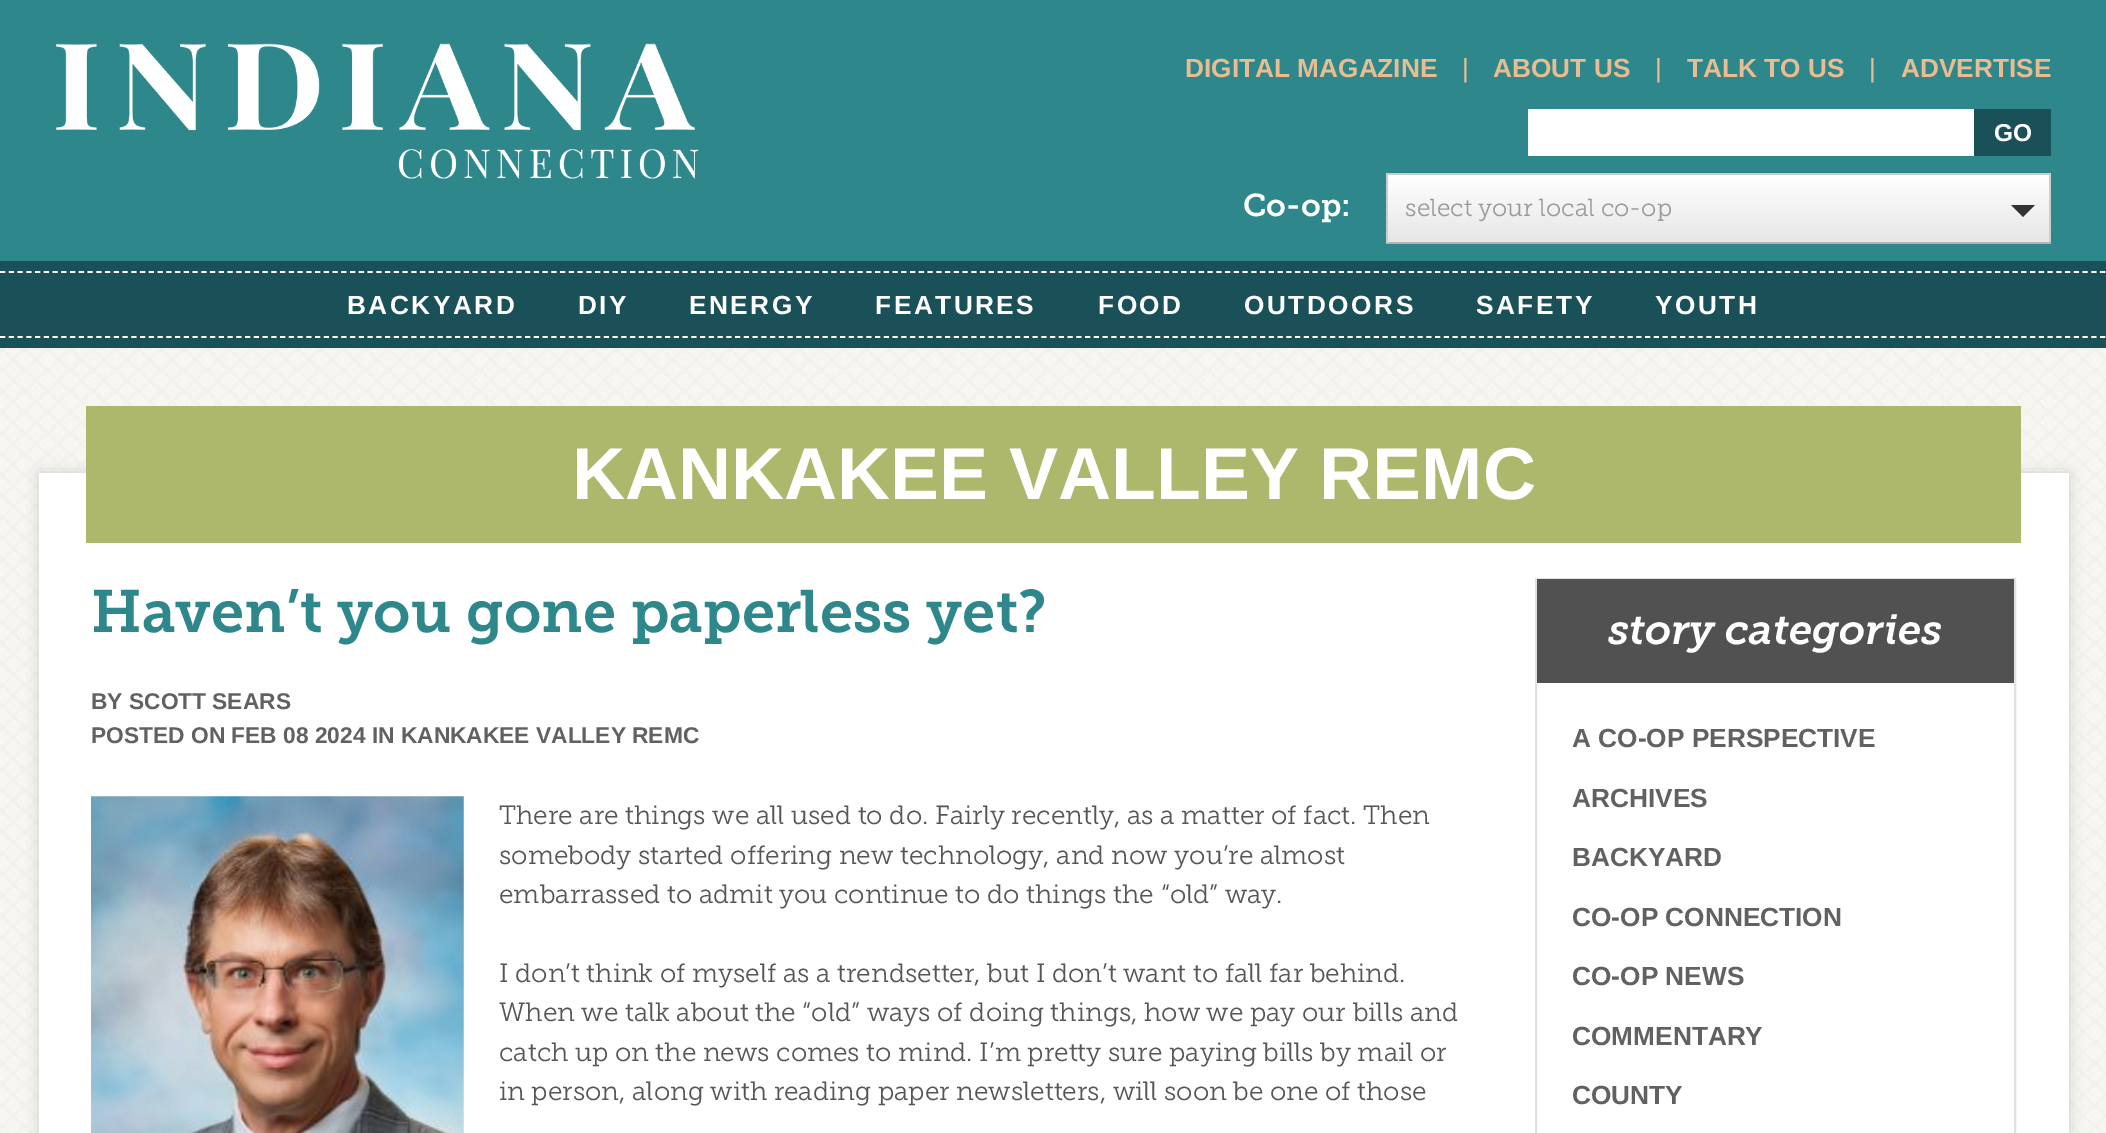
%!PS
<< /PageSize [2106 1133] /PageUsesTransparency true >> setpagedevice
/alpha { dup .setfillconstantalpha .setstrokeconstantalpha } def
/roundrect { 5 dict begin { /r /h /w /y /x } { exch def } forall
  x r add y moveto x w add y 2 copy h add r arct x w add y h add x 1 index r arct
  x y h add x y r arct x y 2 copy exch w add exch r arct closepath end } def
/shadow { 12 dict begin { /a /b /q /h /w /y /x } { exch def } forall gsave /was 0 def
  9 -2 -9 { dup b mul 4 div /e exch def 1 sub .425 mul 2.718 exch exp 1 add a .99 .min exch div /now exch def
    1 1 now sub 1 was sub div sub alpha /was now def
    w h .min e 2 mul add 0 gt { x e sub y e sub w e 2 mul add h e 2 mul add
      q e add b .6 mul add w h .min 2 div e add .min 0 .max roundrect fill } if } for grestore end } def
/picture { 5 dict begin { /h /w /y /x /name } { exch def } forall
  gsave x y translate w h scale
  w h 8 [w 0 0 h 0 0] name (r) file false 3 colorimage grestore end } def
0 .pushpdf14devicefilter
0 1133 translate 1 -1 scale
4 setmiterlimit
1 setgray
0 0 2106 1133 rectfill
0.18 0.529 0.541 setrgbcolor
0 0 2106 261 rectfill
(img1.rgb) 56 43 643 136 picture
/LiberationSans-Bold [26.25 0 0 -26.25 0 0] selectfont
0.918 0.737 0.573 setrgbcolor
1185 77 moveto (DIGITAL MAGAZINE) show
/LiberationSans-Regular [26.25 0 0 -26.25 0 0] selectfont
1462 77 moveto (|) show
/LiberationSans-Bold [26.25 0 0 -26.25 0 0] selectfont
1493 77 moveto (ABOUT US) show
/LiberationSans-Regular [26.25 0 0 -26.25 0 0] selectfont
1655 77 moveto (|) show
/LiberationSans-Bold [26.25 0 0 -26.25 0 0] selectfont
1687 77 moveto (TALK TO US) show
/LiberationSans-Regular [26.25 0 0 -26.25 0 0] selectfont
1869 77 moveto (|) show
/LiberationSans-Bold [26.25 0 0 -26.25 0 0] selectfont
1901 77 moveto (ADVERTISE) show
1 setgray
1528 109 446 47 rectfill
0.102 0.318 0.349 setrgbcolor
1974 109 77 47 rectfill
/LiberationSans-Bold [24.5 0 0 -24.5 0 0] selectfont
1 setgray
1994 141 moveto (GO) show
/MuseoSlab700-SemiBold [31.5 0 0 -31.5 0 0] selectfont
1243 216 moveto (Co-op:) show
gsave newpath 1388 175 moveto 2049 175 lineto 2049 242 lineto 1388 242 lineto closepath clip newpath
<< /ShadingType 2 /ColorSpace /DeviceRGB /Coords [1719 175 1719 242] /Extend [true true] /Function << /FunctionType 2 /Domain [0 1] /C0 [1 1 1] /C1 [0.902 0.902 0.902] /N 1 >> >> shfill grestore
0.8 setgray
1386 173 665 2 rectfill
2049 173 2 70 rectfill
0.702 setgray
1386 242 665 2 rectfill
0.8 setgray
1386 173 2 70 rectfill
/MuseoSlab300-Light [24.5 0 0 -24.5 0 0] selectfont
0.6 setgray
1405 216 moveto (select your local co-op) show
0.2 setgray
newpath 2011 205 moveto 2035 205 lineto 2023 217 lineto closepath fill
0.102 0.318 0.349 setrgbcolor
0 261 2106 87 rectfill
1 setgray
1.8 setlinewidth
[5.25 3.5] 0 setdash
newpath 0 272 moveto 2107 272 lineto stroke
/LiberationSans-Bold [26.25 0 0 -26.25 0 0] selectfont
347 314 moveto 2.5 0 (BACKYARD) ashow
578 314 moveto 2.5 0 (DIY) ashow
689 314 moveto 2.5 0 (ENERGY) ashow
875 314 moveto 2.5 0 (FEATURES) ashow
1098 314 moveto 2.5 0 (FOOD) ashow
1244 314 moveto 2.5 0 (OUTDOORS) ashow
1476 314 moveto 2.5 0 (SAFETY) ashow
1655 314 moveto 2.5 0 (YOUTH) ashow
newpath 0 337 moveto 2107 337 lineto stroke
(img2.rgb) 0 348 2106 785 picture
0.8 setgray
39 473 2030 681 0 7 1 shadow
1 setgray
39 473 2030 660 rectfill
0.678 0.722 0.424 setrgbcolor
86 406 1935 137 rectfill
/LiberationSans-Bold [73.5 0 0 -73.5 0 0] selectfont
1 setgray
572 499 moveto (KANKAKEE VALLEY REMC) show
/MuseoSlab700-SemiBold [59.5 0 0 -59.5 0 0] selectfont
0.18 0.529 0.541 setrgbcolor
91 632 moveto (Haven’t you gone paperless yet?) show
/LiberationSans-Bold [22.75 0 0 -22.75 0 0] selectfont
0.38 setgray
91 709 moveto (BY SCOTT SEARS) show
91 743 moveto (POSTED ON FEB 08 2024 IN KANKAKEE VALLEY REMC) show
(img3.rgb) 91 796 373 337 picture
/MuseoSlab300-Light [26.25 0 0 -26.25 0 0] selectfont
0.337 setgray
499 824 moveto (There are things we all used to do. Fairly recently, as a matter of fact. Then) show
499 864 moveto (somebody started offering new technology, and now you’re almost) show
499 903 moveto (embarrassed to admit you continue to do things the “old” way.) show
499 982 moveto (I don’t think of myself as a trendsetter, but I don’t want to fall far behind.) show
499 1021 moveto (When we talk about the “old” ways of doing things, how we pay our bills and) show
499 1061 moveto (catch up on the news comes to mind. I’m pretty sure paying bills by mail or) show
499 1100 moveto (in person, along with reading paper newsletters, will soon be one of those) show
0.882 setgray
2 setlinewidth
[] 0 setdash
1536 579 479 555 rectstroke
0.318 setgray
1537 579 477 104 rectfill
/MuseoSlab700-SemiBoldItalic [42 0 0 -42 0 0] selectfont
1 setgray
1608 644 moveto (story categories) show
/LiberationSans-Bold [26.25 0 0 -26.25 0 0] selectfont
0.38 setgray
1572 747 moveto (A CO-OP PERSPECTIVE) show
1572 807 moveto (ARCHIVES) show
1572 866 moveto (BACKYARD) show
1572 926 moveto (CO-OP CONNECTION) show
1572 985 moveto (CO-OP NEWS) show
1572 1045 moveto (COMMENTARY) show
1572 1104 moveto (COUNTY) show
.poppdf14devicefilter showpage
